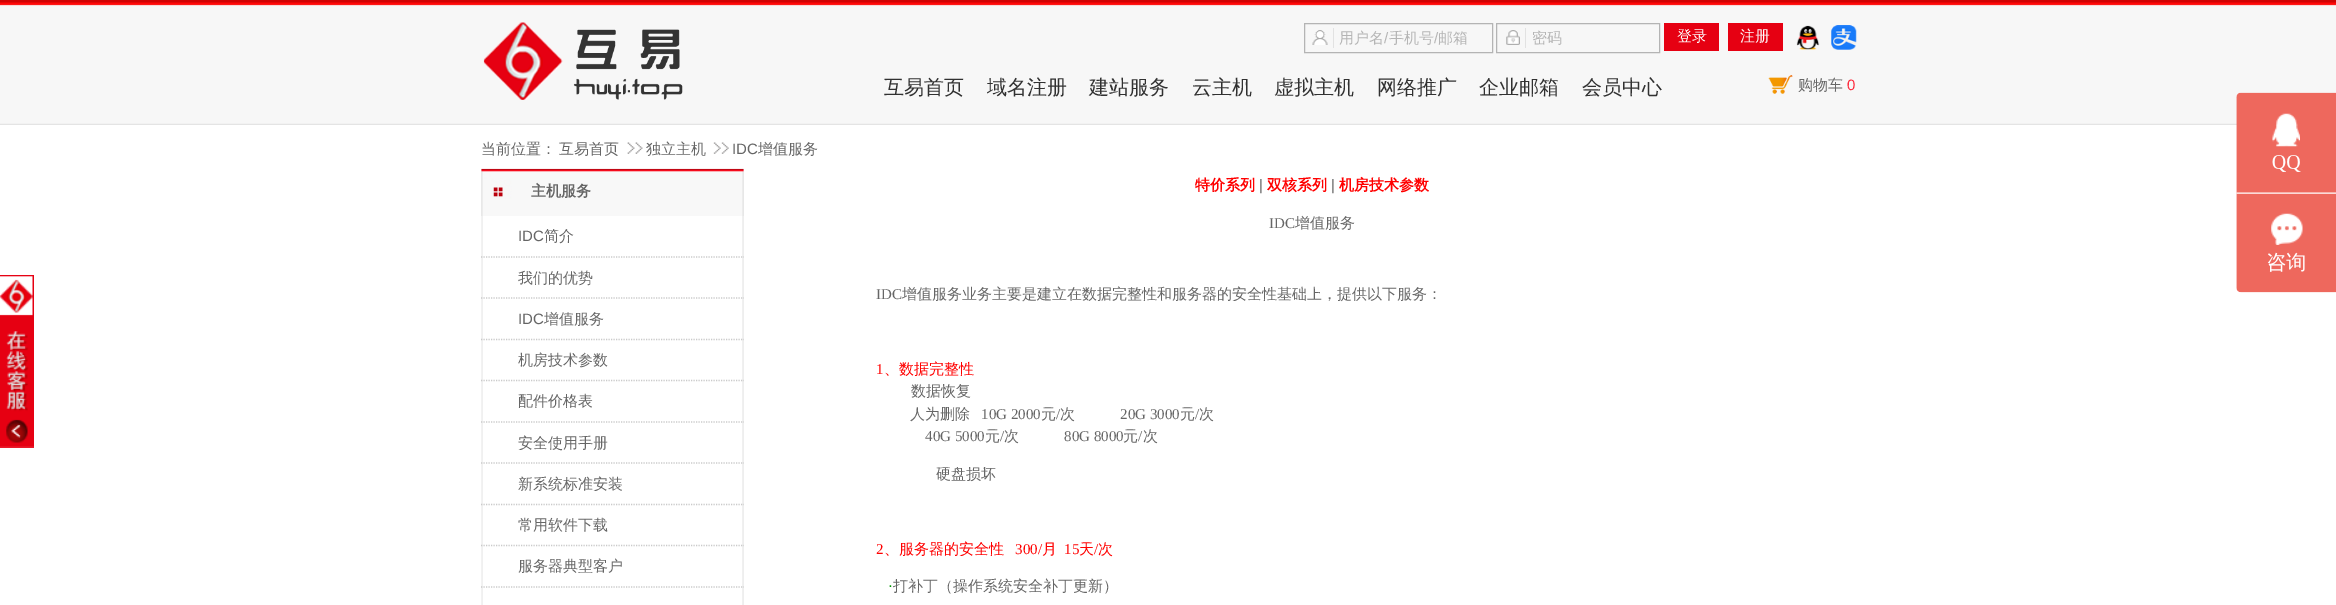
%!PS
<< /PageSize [2336 605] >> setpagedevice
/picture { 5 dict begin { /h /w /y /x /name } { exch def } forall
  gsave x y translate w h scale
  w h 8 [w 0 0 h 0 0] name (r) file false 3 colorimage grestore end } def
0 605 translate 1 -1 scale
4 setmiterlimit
1 setgray
0 0 2336 605 rectfill
(img1.rgb) 0 0 2336 125 picture
(img2.rgb) 483 22 200 78 picture
0.706 setgray
1304.5 23.5 188 29 rectstroke
(img3.rgb) 1312 30 16 15 picture
0.886 setgray
1333 28 1 20 rectfill
/WenQuanYiZenHei-Medium [15 0 0 -15 0 0] selectfont
0.71 setgray
1339 43 moveto (用户名) show
/LiberationSans-Regular [15 0 0 -15 0 0] selectfont
1384 43 moveto (/) show
/WenQuanYiZenHei-Medium [15 0 0 -15 0 0] selectfont
1389 43 moveto (手机号) show
/LiberationSans-Regular [15 0 0 -15 0 0] selectfont
1434 43 moveto (/) show
/WenQuanYiZenHei-Medium [15 0 0 -15 0 0] selectfont
1438 43 moveto (邮箱) show
0.706 setgray
1496.5 23.5 163 29 rectstroke
(img4.rgb) 1506 30 14 15 picture
0.886 setgray
1525 28 1 20 rectfill
0.71 setgray
1532 43 moveto (密码) show
0.902 0 0.071 setrgbcolor
1664 23 55 28 rectfill
1 setgray
1677 41 moveto (登录) show
0.902 0 0.071 setrgbcolor
1728 23 55 28 rectfill
1 setgray
1740 41 moveto (注册) show
(img5.rgb) 1796 25 24 25 picture
(img6.rgb) 1831 25 26 25 picture
/WenQuanYiZenHei-Medium [20 0 0 -20 0 0] selectfont
0.192 setgray
884 94 moveto (互易首页) show
987 94 moveto (域名注册) show
1089 94 moveto (建站服务) show
1192 94 moveto (云主机) show
1274 94 moveto (虚拟主机) show
1377 94 moveto (网络推广) show
1479 94 moveto (企业邮箱) show
1582 94 moveto (会员中心) show
(img7.rgb) 1768 75 25 19 picture
/WenQuanYiZenHei-Medium [15 0 0 -15 0 0] selectfont
0.4 setgray
1798 90 moveto (购物车) show
/LiberationSans-Regular [15 0 0 -15 0 0] selectfont
0.996 0.169 0.239 setrgbcolor
1847 90 moveto (0) show
(img8.rgb) 0 275 34 173 picture
/WenQuanYiZenHei-Medium [15 0 0 -15 0 0] selectfont
0.4 setgray
481 154 moveto (当前位置：) show
559 154 moveto (互易首页) show
(img9.rgb) 627 142 16 12 picture
646 154 moveto (独立主机) show
(img10.rgb) 713 142 16 12 picture
/LiberationSans-Regular [15 0 0 -15 0 0] selectfont
732 154 moveto (IDC) show
/WenQuanYiZenHei-Medium [15 0 0 -15 0 0] selectfont
758 154 moveto (增值服务) show
(img11.rgb) 481 169 263 436 picture
(img12.rgb) 481 168 263 48 picture
/WenQuanYiZenHei-Bold [15 0 0 -15 0 0] selectfont
531 196 moveto (主机服务) show
0.792 setgray
1.2 setlinewidth
[1.25 1.25] 0 setdash
newpath 481 257 moveto 744 257 lineto stroke
/LiberationSans-Regular [15 0 0 -15 0 0] selectfont
0.4 setgray
518 241 moveto (IDC) show
/WenQuanYiZenHei-Medium [15 0 0 -15 0 0] selectfont
544 241 moveto (简介) show
0.792 setgray
newpath 481 298 moveto 744 298 lineto stroke
0.4 setgray
518 283 moveto (我们的优势) show
0.792 setgray
newpath 481 339.5 moveto 744 339.5 lineto stroke
/LiberationSans-Regular [15 0 0 -15 0 0] selectfont
0.4 setgray
518 324 moveto (IDC) show
/WenQuanYiZenHei-Medium [15 0 0 -15 0 0] selectfont
544 324 moveto (增值服务) show
0.792 setgray
newpath 481 380.5 moveto 744 380.5 lineto stroke
0.4 setgray
518 365 moveto (机房技术参数) show
0.792 setgray
newpath 481 422 moveto 744 422 lineto stroke
0.4 setgray
518 406 moveto (配件价格表) show
0.792 setgray
newpath 481 463 moveto 744 463 lineto stroke
0.4 setgray
518 448 moveto (安全使用手册) show
0.792 setgray
newpath 481 504.5 moveto 744 504.5 lineto stroke
0.4 setgray
518 489 moveto (新系统标准安装) show
0.792 setgray
newpath 481 545.5 moveto 744 545.5 lineto stroke
0.4 setgray
518 530 moveto (常用软件下载) show
0.792 setgray
newpath 481 587 moveto 744 587 lineto stroke
0.4 setgray
518 571 moveto (服务器典型客户) show
/WenQuanYiZenHei-Bold [15 0 0 -15 0 0] selectfont
1 0 0 setrgbcolor
1195 190 moveto (特价系列) show
/LiberationSans-Regular [15 0 0 -15 0 0] selectfont
0.4 setgray
1259 190 moveto (|) show
/WenQuanYiZenHei-Bold [15 0 0 -15 0 0] selectfont
1 0 0 setrgbcolor
1267 190 moveto (双核系列) show
/LiberationSans-Regular [15 0 0 -15 0 0] selectfont
0.4 setgray
1331 190 moveto (|) show
/WenQuanYiZenHei-Bold [15 0 0 -15 0 0] selectfont
1 0 0 setrgbcolor
1339 190 moveto (机房技术参数) show
/LiberationSerif-Regular [15 0 0 -15 0 0] selectfont
0.4 setgray
1269 228 moveto (IDC) show
/WenQuanYiZenHei-Medium [15 0 0 -15 0 0] selectfont
1295 228 moveto (增值服务) show
/LiberationSerif-Regular [15 0 0 -15 0 0] selectfont
876 299 moveto (IDC) show
/WenQuanYiZenHei-Medium [15 0 0 -15 0 0] selectfont
902 299 moveto (增值服务业务主要是建立在数据完整性和服务器的安全性基础上，提供以下服务：) show
/LiberationSerif-Regular [15 0 0 -15 0 0] selectfont
1 0 0 setrgbcolor
876 374 moveto (1) show
/WenQuanYiZenHei-Medium [15 0 0 -15 0 0] selectfont
884 374 moveto (、数据完整性) show
0.4 setgray
911 396 moveto (数据恢复) show
910 419 moveto (人为删除) show
/LiberationSerif-Regular [15 0 0 -15 0 0] selectfont
981 419 moveto (10G 2000) show
/WenQuanYiZenHei-Medium [15 0 0 -15 0 0] selectfont
1041 419 moveto (元) show
/LiberationSerif-Regular [15 0 0 -15 0 0] selectfont
1056 419 moveto (/) show
/WenQuanYiZenHei-Medium [15 0 0 -15 0 0] selectfont
1060 419 moveto (次) show
/LiberationSerif-Regular [15 0 0 -15 0 0] selectfont
1120 419 moveto (20G 3000) show
/WenQuanYiZenHei-Medium [15 0 0 -15 0 0] selectfont
1180 419 moveto (元) show
/LiberationSerif-Regular [15 0 0 -15 0 0] selectfont
1195 419 moveto (/) show
/WenQuanYiZenHei-Medium [15 0 0 -15 0 0] selectfont
1199 419 moveto (次) show
/LiberationSerif-Regular [15 0 0 -15 0 0] selectfont
925 441 moveto (40G 5000) show
/WenQuanYiZenHei-Medium [15 0 0 -15 0 0] selectfont
985 441 moveto (元) show
/LiberationSerif-Regular [15 0 0 -15 0 0] selectfont
1000 441 moveto (/) show
/WenQuanYiZenHei-Medium [15 0 0 -15 0 0] selectfont
1004 441 moveto (次) show
/LiberationSerif-Regular [15 0 0 -15 0 0] selectfont
1064 441 moveto (80G 8000) show
/WenQuanYiZenHei-Medium [15 0 0 -15 0 0] selectfont
1123 441 moveto (元) show
/LiberationSerif-Regular [15 0 0 -15 0 0] selectfont
1138 441 moveto (/) show
/WenQuanYiZenHei-Medium [15 0 0 -15 0 0] selectfont
1143 441 moveto (次) show
936 479 moveto (硬盘损坏) show
/LiberationSerif-Regular [15 0 0 -15 0 0] selectfont
1 0 0 setrgbcolor
876 554 moveto (2) show
/WenQuanYiZenHei-Medium [15 0 0 -15 0 0] selectfont
884 554 moveto (、服务器的安全性) show
/LiberationSerif-Regular [15 0 0 -15 0 0] selectfont
1015 554 moveto (300/) show
/WenQuanYiZenHei-Medium [15 0 0 -15 0 0] selectfont
1042 554 moveto (月) show
/LiberationSerif-Regular [15 0 0 -15 0 0] selectfont
1064 554 moveto (15) show
/WenQuanYiZenHei-Medium [15 0 0 -15 0 0] selectfont
1079 554 moveto (天) show
/LiberationSerif-Regular [15 0 0 -15 0 0] selectfont
1094 554 moveto (/) show
/WenQuanYiZenHei-Medium [15 0 0 -15 0 0] selectfont
1098 554 moveto (次) show
/LiberationSerif-Regular [15 0 0 -15 0 0] selectfont
0 0.6 0 setrgbcolor
888 591 moveto (·) show
/WenQuanYiZenHei-Medium [15 0 0 -15 0 0] selectfont
0.4 setgray
893 591 moveto (打补丁（操作系统安全补丁更新）) show
(img13.rgb) 2236 92 100 201 picture
showpage
